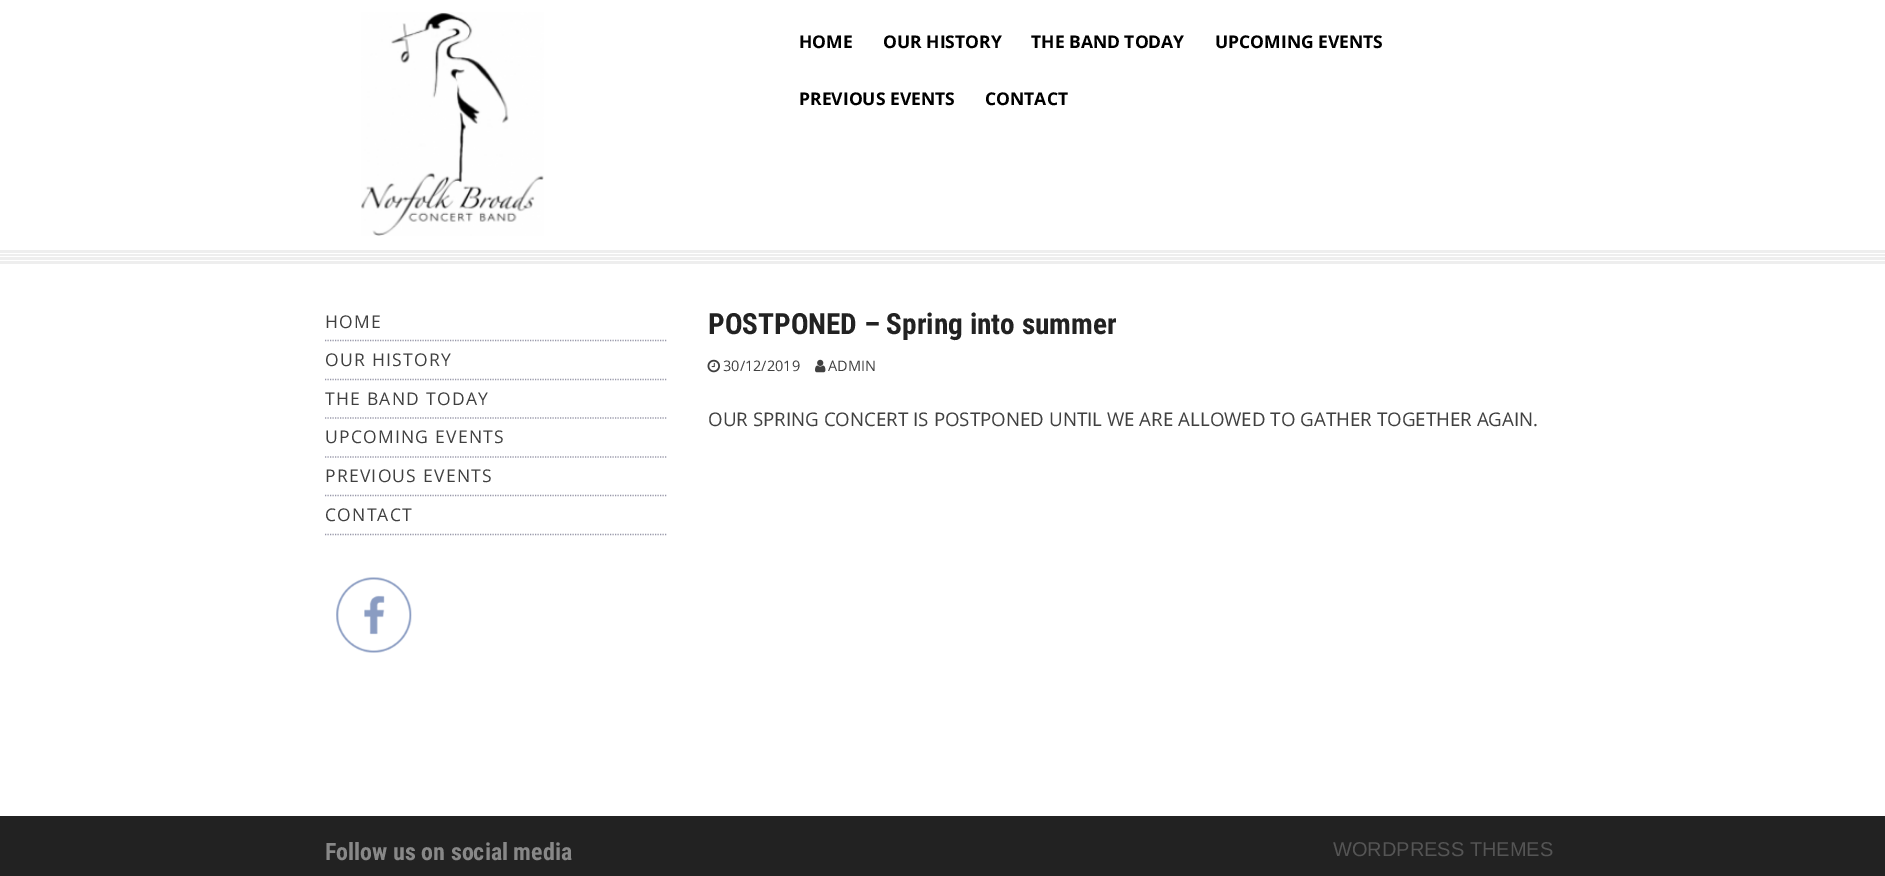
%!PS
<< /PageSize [1885 876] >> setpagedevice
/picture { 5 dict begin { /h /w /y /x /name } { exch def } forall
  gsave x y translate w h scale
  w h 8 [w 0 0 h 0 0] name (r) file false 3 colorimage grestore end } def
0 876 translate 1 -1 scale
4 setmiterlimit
1 setgray
0 0 1885 876 rectfill
(img1.rgb) 361 12 183 224 picture
/OpenSans-Bold [17.5 0 0 -17.5 0 0] selectfont
0 setgray
799 48 moveto (HOME) show
883 48 moveto (OUR HISTORY) show
1031 48 moveto (THE BAND TODAY) show
1215 48 moveto (UPCOMING EVENTS) show
799 105 moveto (PREVIOUS EVENTS) show
985 105 moveto (CONTACT) show
0.933 setgray
0 250 1885 14 rectfill
1 setgray
0 253 1885 1 rectfill
0 256 1885 1 rectfill
0 260 1885 1 rectfill
0.6 0.6 0.667 setrgbcolor
1.2 setlinewidth
[1.25 1.25] 0 setdash
newpath 325 340.5 moveto 667.5 340.5 lineto stroke
/OpenSans-Regular [17.5 0 0 -17.5 0 0] selectfont
0.251 setgray
325 328 moveto 1.25 0 (HOME) ashow
0.6 0.6 0.667 setrgbcolor
newpath 325 379.5 moveto 667.5 379.5 lineto stroke
0.251 setgray
325 366 moveto 1.25 0 (OUR HISTORY) ashow
0.6 0.6 0.667 setrgbcolor
newpath 325 418 moveto 667.5 418 lineto stroke
0.251 setgray
325 405 moveto 1.25 0 (THE BAND TODAY) ashow
0.6 0.6 0.667 setrgbcolor
newpath 325 457 moveto 667.5 457 lineto stroke
0.251 setgray
325 443 moveto 1.25 0 (UPCOMING EVENTS) ashow
0.6 0.6 0.667 setrgbcolor
newpath 325 495.5 moveto 667.5 495.5 lineto stroke
0.251 setgray
325 482 moveto 1.25 0 (PREVIOUS EVENTS) ashow
0.6 0.6 0.667 setrgbcolor
newpath 325 534.5 moveto 667.5 534.5 lineto stroke
0.251 setgray
325 521 moveto 1.25 0 (CONTACT) ashow
(img2.rgb) 336 577 76 76 picture
/RobotoCondensed-Bold [29.25 0 0 -29.25 0 0] selectfont
0.133 setgray
708 334 moveto (POSTPONED – Spring into summer) show
(img3.rgb) 707 359 13 14 picture
/OpenSans-Regular [14.5 0 0 -14.5 0 0] selectfont
0.251 setgray
723 371 moveto (30/12/2019) show
(img4.rgb) 815 359 11 14 picture
828 371 moveto (ADMIN) show
/OpenSans-Regular [18.75 0 0 -18.75 0 0] selectfont
708 426 moveto (OUR SPRING CONCERT IS POSTPONED UNTIL WE ARE ALLOWED TO GATHER TOGETHER AGAIN.) show
0.133 setgray
0 816 1885 60 rectfill
/RobotoCondensed-Bold [24 0 0 -24 0 0] selectfont
0.533 setgray
325 860 moveto (Follow us on social media) show
/LiberationSans-Regular [20 0 0 -20 0 0] selectfont
0.333 setgray
1333 856 moveto (WORDPRESS THEMES) show
showpage
